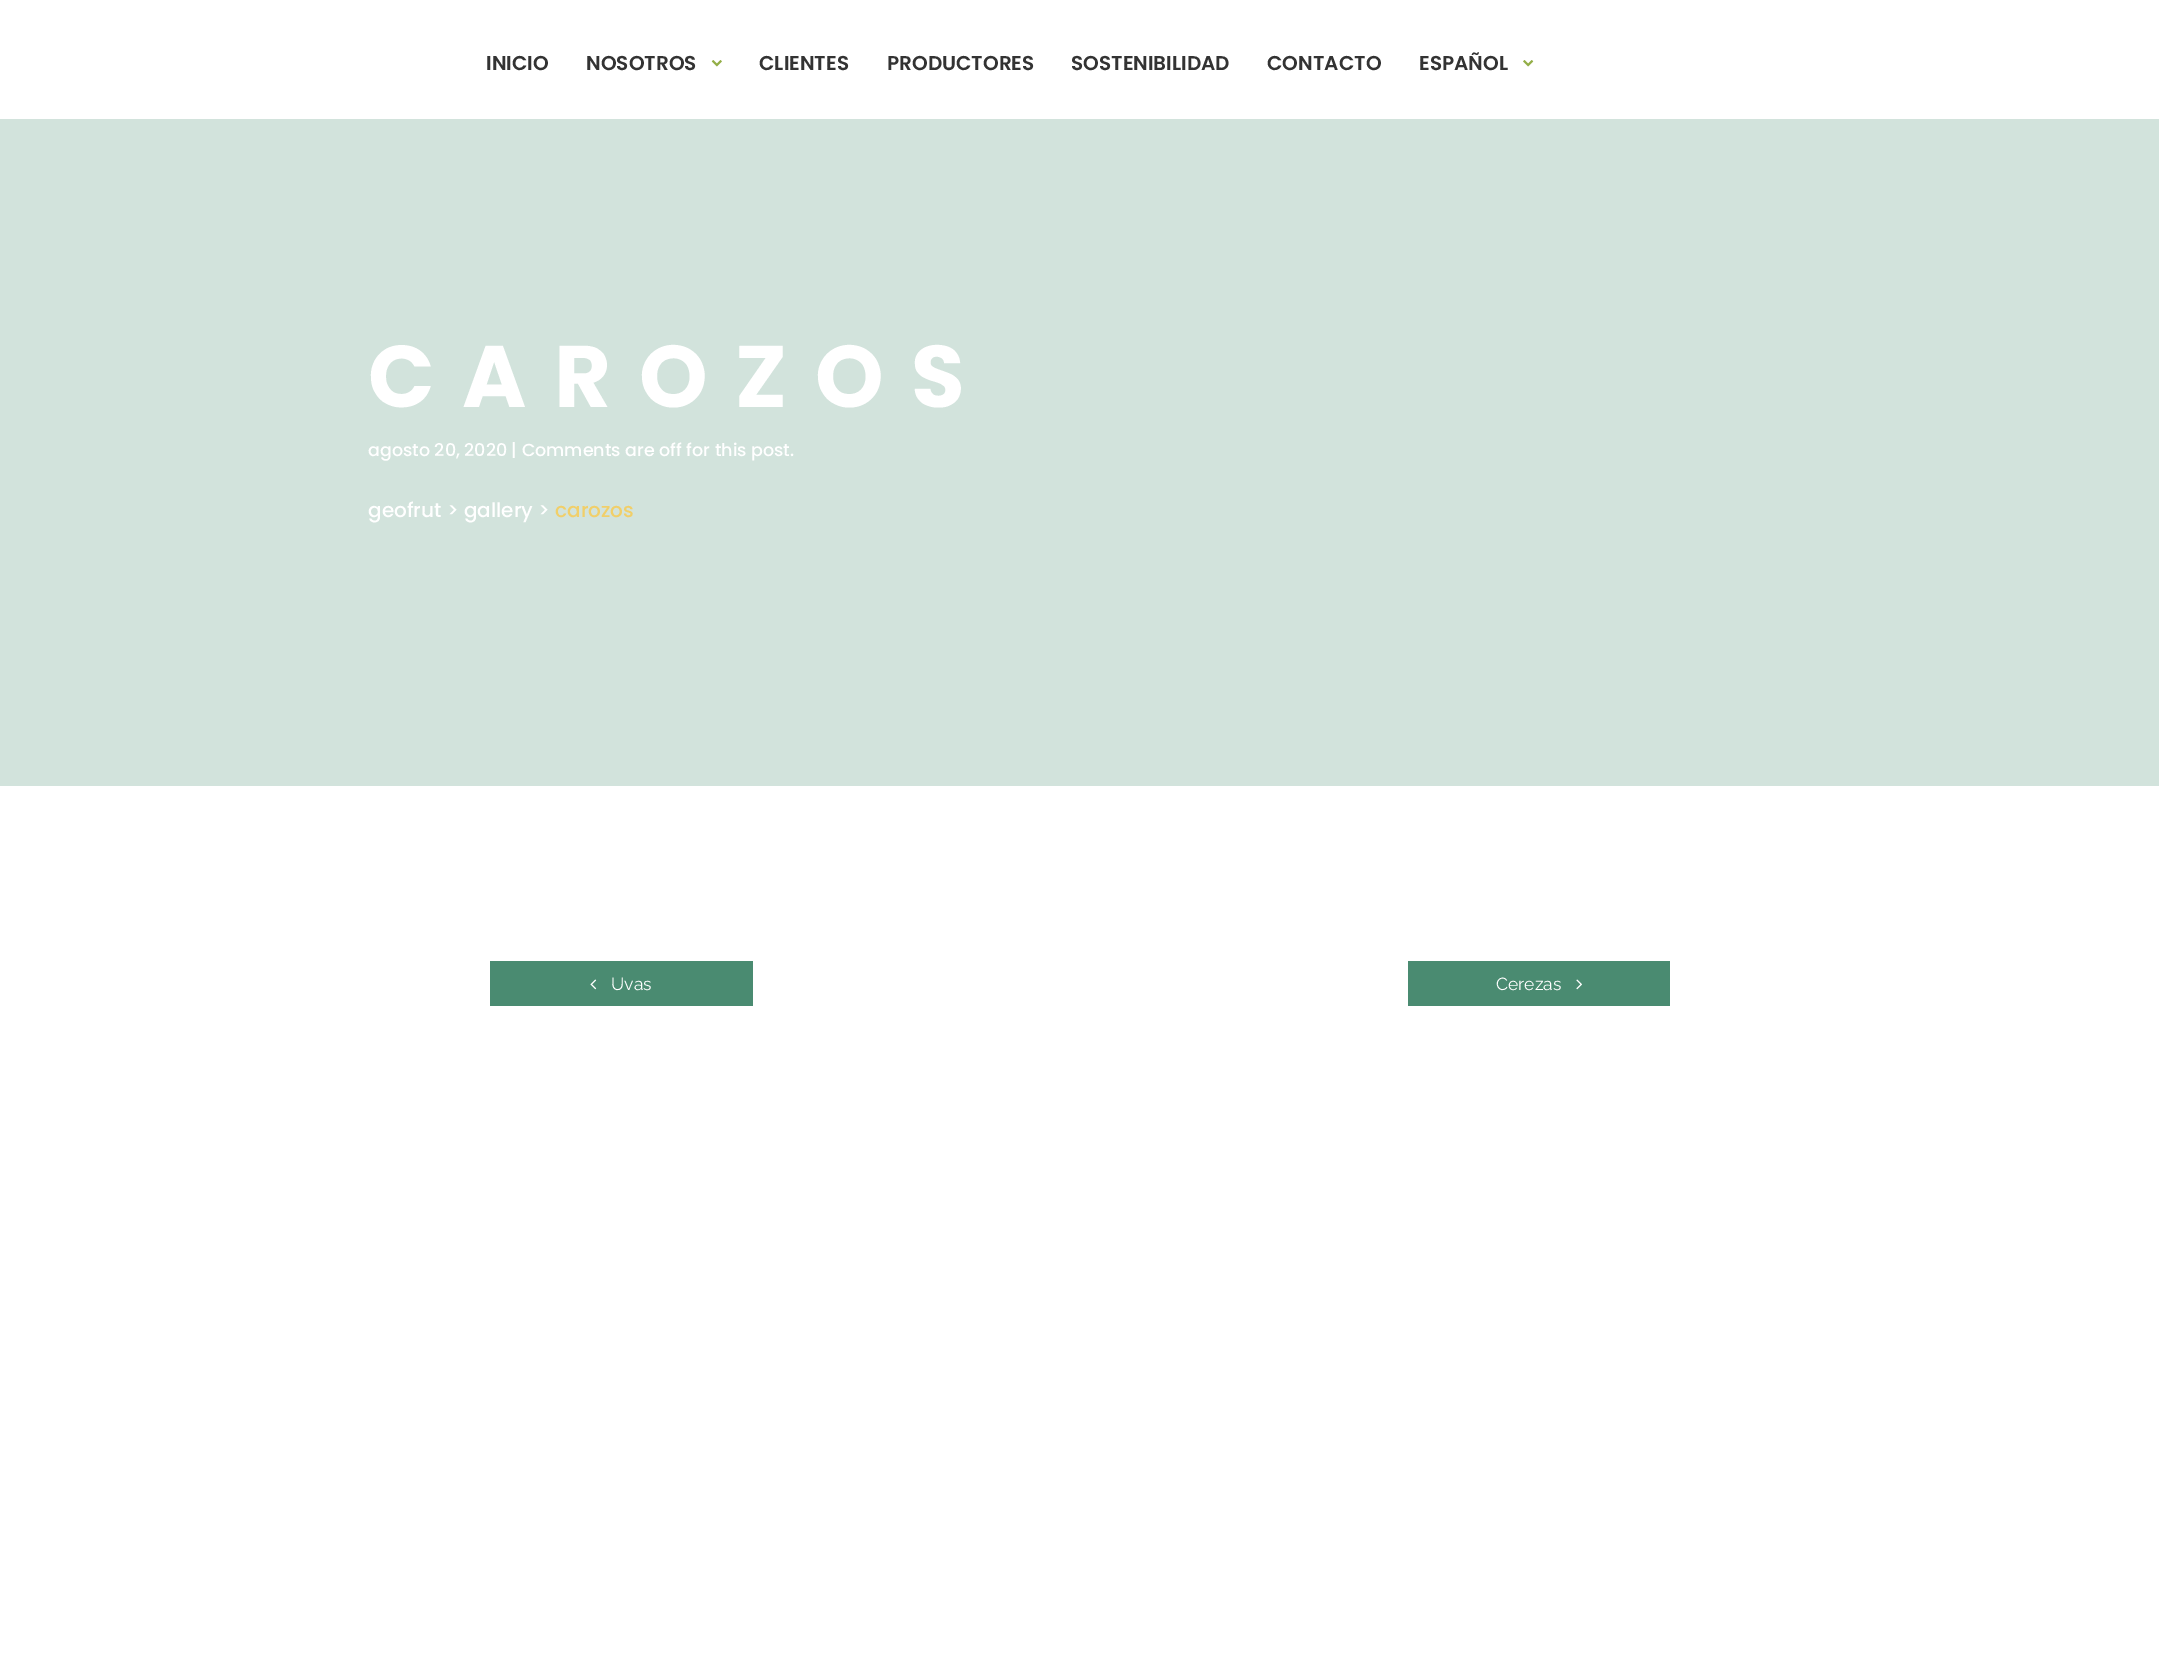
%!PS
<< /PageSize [2159 1673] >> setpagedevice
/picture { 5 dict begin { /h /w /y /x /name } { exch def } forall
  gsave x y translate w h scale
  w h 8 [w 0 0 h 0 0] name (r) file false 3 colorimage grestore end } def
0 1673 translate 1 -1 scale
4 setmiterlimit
1 setgray
0 0 2159 1673 rectfill
/Poppins-SemiBold [20 0 0 -20 0 0] selectfont
0.2 setgray
486 70 moveto (INICIO) show
586 70 moveto (NOSOTROS) show
(img1.rgb) 711 60 11 7 picture
759 70 moveto (CLIENTES) show
887 70 moveto (PRODUCTORES) show
1071 70 moveto (SOSTENIBILIDAD) show
1267 70 moveto (CONTACTO) show
1419 70 moveto (ESPAÑOL) show
(img2.rgb) 1523 60 11 7 picture
0.824 0.89 0.863 setrgbcolor
0 119 2159 667 rectfill
/Poppins-Bold [87.5 0 0 -87.5 0 0] selectfont
1 setgray
368 407 moveto 27.5 0 (CAROZOS) ashow
/Poppins-Medium [17.5 0 0 -17.5 0 0] selectfont
368 456 moveto (agosto 20, 2020 | Comments are off for this post.) show
/Poppins-Medium [20 0 0 -20 0 0] selectfont
368 517 moveto (geofrut > gallery >) show
0.945 0.812 0.412 setrgbcolor
555 517 moveto (carozos) show
0.29 0.545 0.443 setrgbcolor
490 961 263 45 rectfill
(img3.rgb) 590 979 7 11 picture
/Raleway-Regular [17.5 0 0 -17.5 0 0] selectfont
1 setgray
611 990 moveto (Uvas) show
0.29 0.545 0.443 setrgbcolor
1408 961 262 45 rectfill
1 setgray
1496 990 moveto (Cerezas) show
(img4.rgb) 1576 979 6 11 picture
showpage
